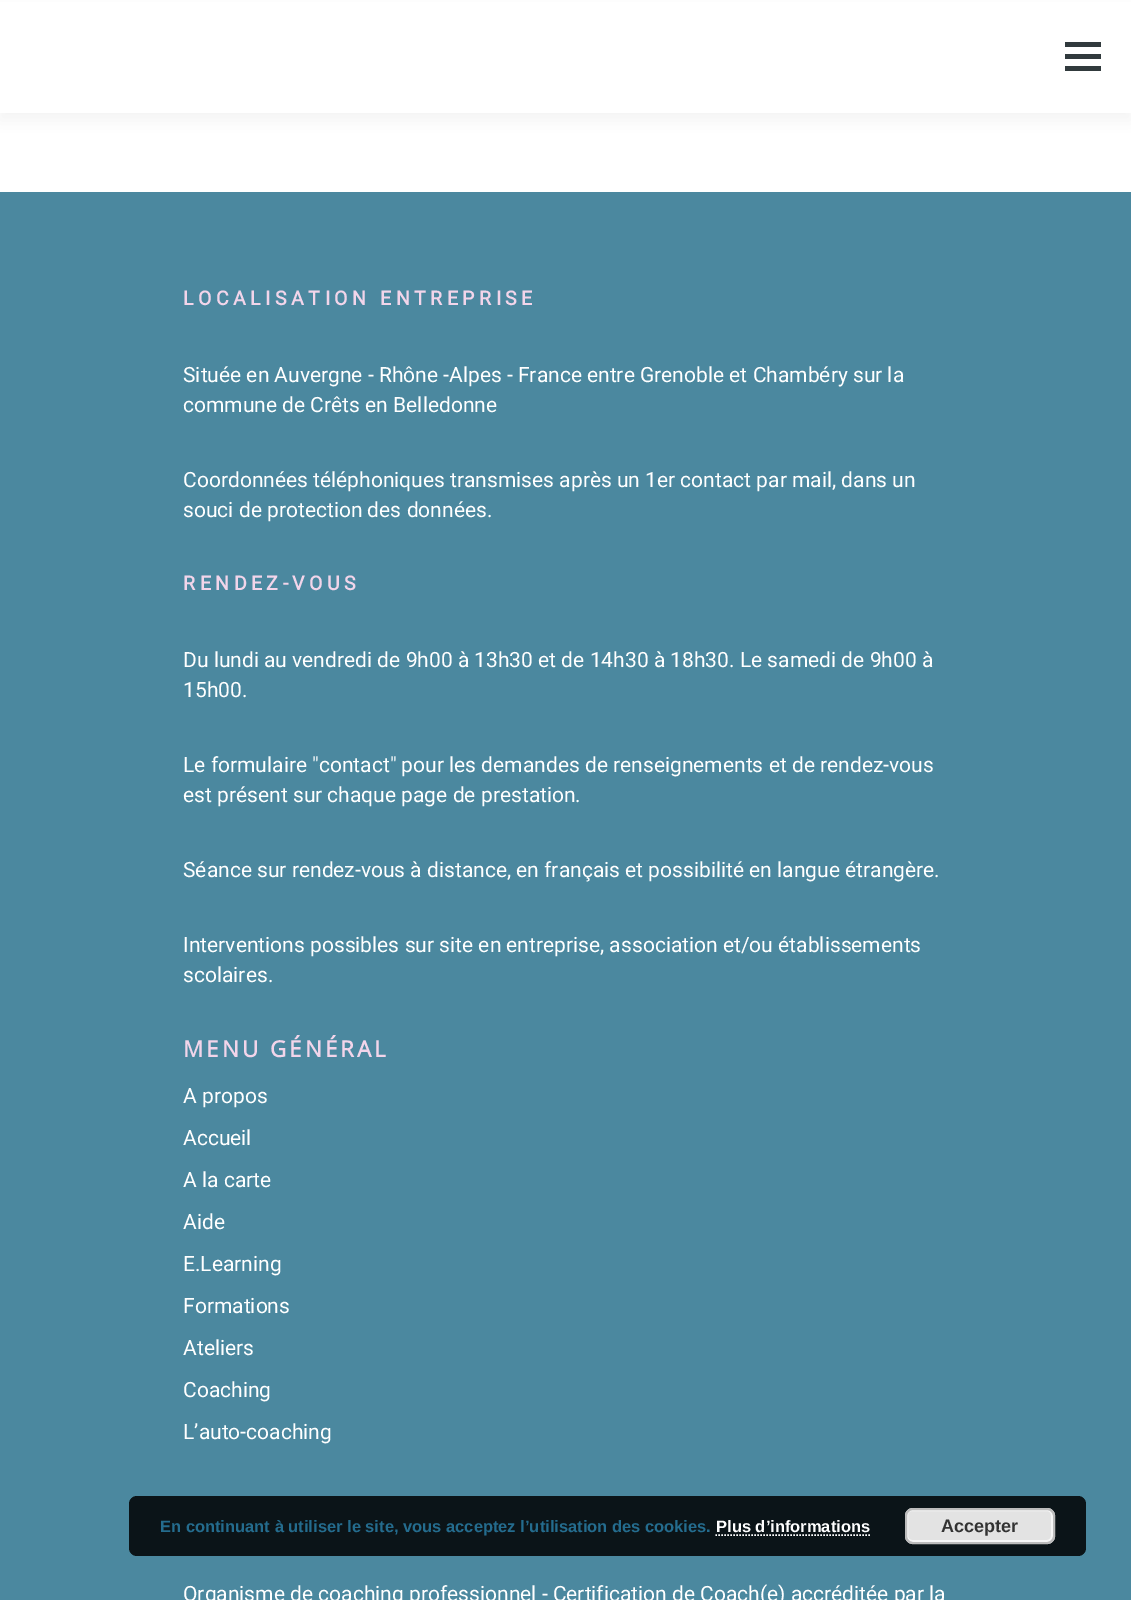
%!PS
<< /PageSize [1131 1600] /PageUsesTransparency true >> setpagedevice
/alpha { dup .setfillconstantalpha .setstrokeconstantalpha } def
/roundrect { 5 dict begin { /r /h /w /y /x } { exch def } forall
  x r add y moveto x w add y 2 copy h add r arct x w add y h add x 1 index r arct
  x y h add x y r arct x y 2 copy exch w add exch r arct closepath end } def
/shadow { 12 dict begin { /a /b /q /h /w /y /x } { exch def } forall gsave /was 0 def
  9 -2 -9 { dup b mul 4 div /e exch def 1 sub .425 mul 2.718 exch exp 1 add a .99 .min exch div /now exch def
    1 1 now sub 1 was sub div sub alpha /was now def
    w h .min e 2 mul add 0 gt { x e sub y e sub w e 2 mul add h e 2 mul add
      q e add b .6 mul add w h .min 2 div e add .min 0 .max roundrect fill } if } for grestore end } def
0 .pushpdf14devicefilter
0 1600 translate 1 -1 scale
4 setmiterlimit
1 setgray
0 0 1131 1600 rectfill
0.196 setgray
0 8 1131 112 0 7.5 0.06 shadow
1 setgray
0 2 1131 111 rectfill
0.192 0.227 0.239 setrgbcolor
1065 54 36 5 rectfill
1065 42 36 5 rectfill
1065 66 36 5 rectfill
0.294 0.533 0.624 setrgbcolor
0 192 1131 1408 rectfill
/Roboto-Bold [19.5 0 0 -19.5 0 0] selectfont
0.949 0.835 0.918 setrgbcolor
183 305 moveto 4.5 0 (LOCALISATION ENTREPRISE) ashow
/Roboto-Regular [21 0 0 -21 0 0] selectfont
1 setgray
183 382 moveto (Située en Auvergne - Rhône -Alpes - France entre Grenoble et Chambéry sur la) show
183 412 moveto (commune de Crêts en Belledonne) show
183 487 moveto (Coordonnées téléphoniques transmises après un 1er contact par mail, dans un) show
183 517 moveto (souci de protection des données.) show
/Roboto-Bold [19.5 0 0 -19.5 0 0] selectfont
0.949 0.835 0.918 setrgbcolor
183 590 moveto 4.5 0 (RENDEZ-VOUS) ashow
/Roboto-Regular [21 0 0 -21 0 0] selectfont
1 setgray
183 667 moveto (Du lundi au vendredi de 9h00 à 13h30 et de 14h30 à 18h30. Le samedi de 9h00 à) show
183 697 moveto (15h00.) show
183 772 moveto (Le formulaire "contact" pour les demandes de renseignements et de rendez-vous) show
183 802 moveto (est présent sur chaque page de prestation.) show
183 877 moveto (Séance sur rendez-vous à distance, en français et possibilité en langue étrangère.) show
183 952 moveto (Interventions possibles sur site en entreprise, association et/ou établissements) show
183 982 moveto (scolaires.) show
/OpenSans-Bold [22.5 0 0 -22.5 0 0] selectfont
0.949 0.835 0.918 setrgbcolor
183 1057 moveto 3 0 (MENU GÉNÉRAL) ashow
/Roboto-Regular [21 0 0 -21 0 0] selectfont
1 setgray
183 1103 moveto (A propos) show
183 1145 moveto (Accueil) show
183 1187 moveto (A la carte) show
183 1229 moveto (Aide) show
183 1271 moveto (E.Learning) show
183 1313 moveto (Formations) show
183 1355 moveto (Ateliers) show
183 1397 moveto (Coaching) show
183 1439 moveto (L’auto-coaching) show
183 1601 moveto (Organisme de coaching professionnel - Certification de Coach\(e\) accréditée par la) show
0.85 alpha
0 setgray
129 1496 957 60 8 roundrect fill
/LiberationSans-Bold [16.5 0 0 -16.5 0 0] selectfont
1 alpha
0.141 0.424 0.557 setrgbcolor
160 1532 moveto (En continuant à utiliser le site, vous acceptez l’utilisation des cookies.) show
1 setgray
716 1532 moveto (Plus d’informations) show
1.5 setlinewidth
[1.5 1.5] 0 setdash
newpath 715.5 1535 moveto 870 1535 lineto stroke
0.89 setgray
905 1508 150 36 8 roundrect fill
0.965 setgray
2 setlinewidth
[] 0 setdash
907 1510 145 31 5 roundrect stroke
0.733 setgray
906 1509 148 34 7 roundrect stroke
/LiberationSans-Bold [18 0 0 -18 0 0] selectfont
0.2 setgray
941 1532 moveto (Accepter) show
.poppdf14devicefilter showpage
